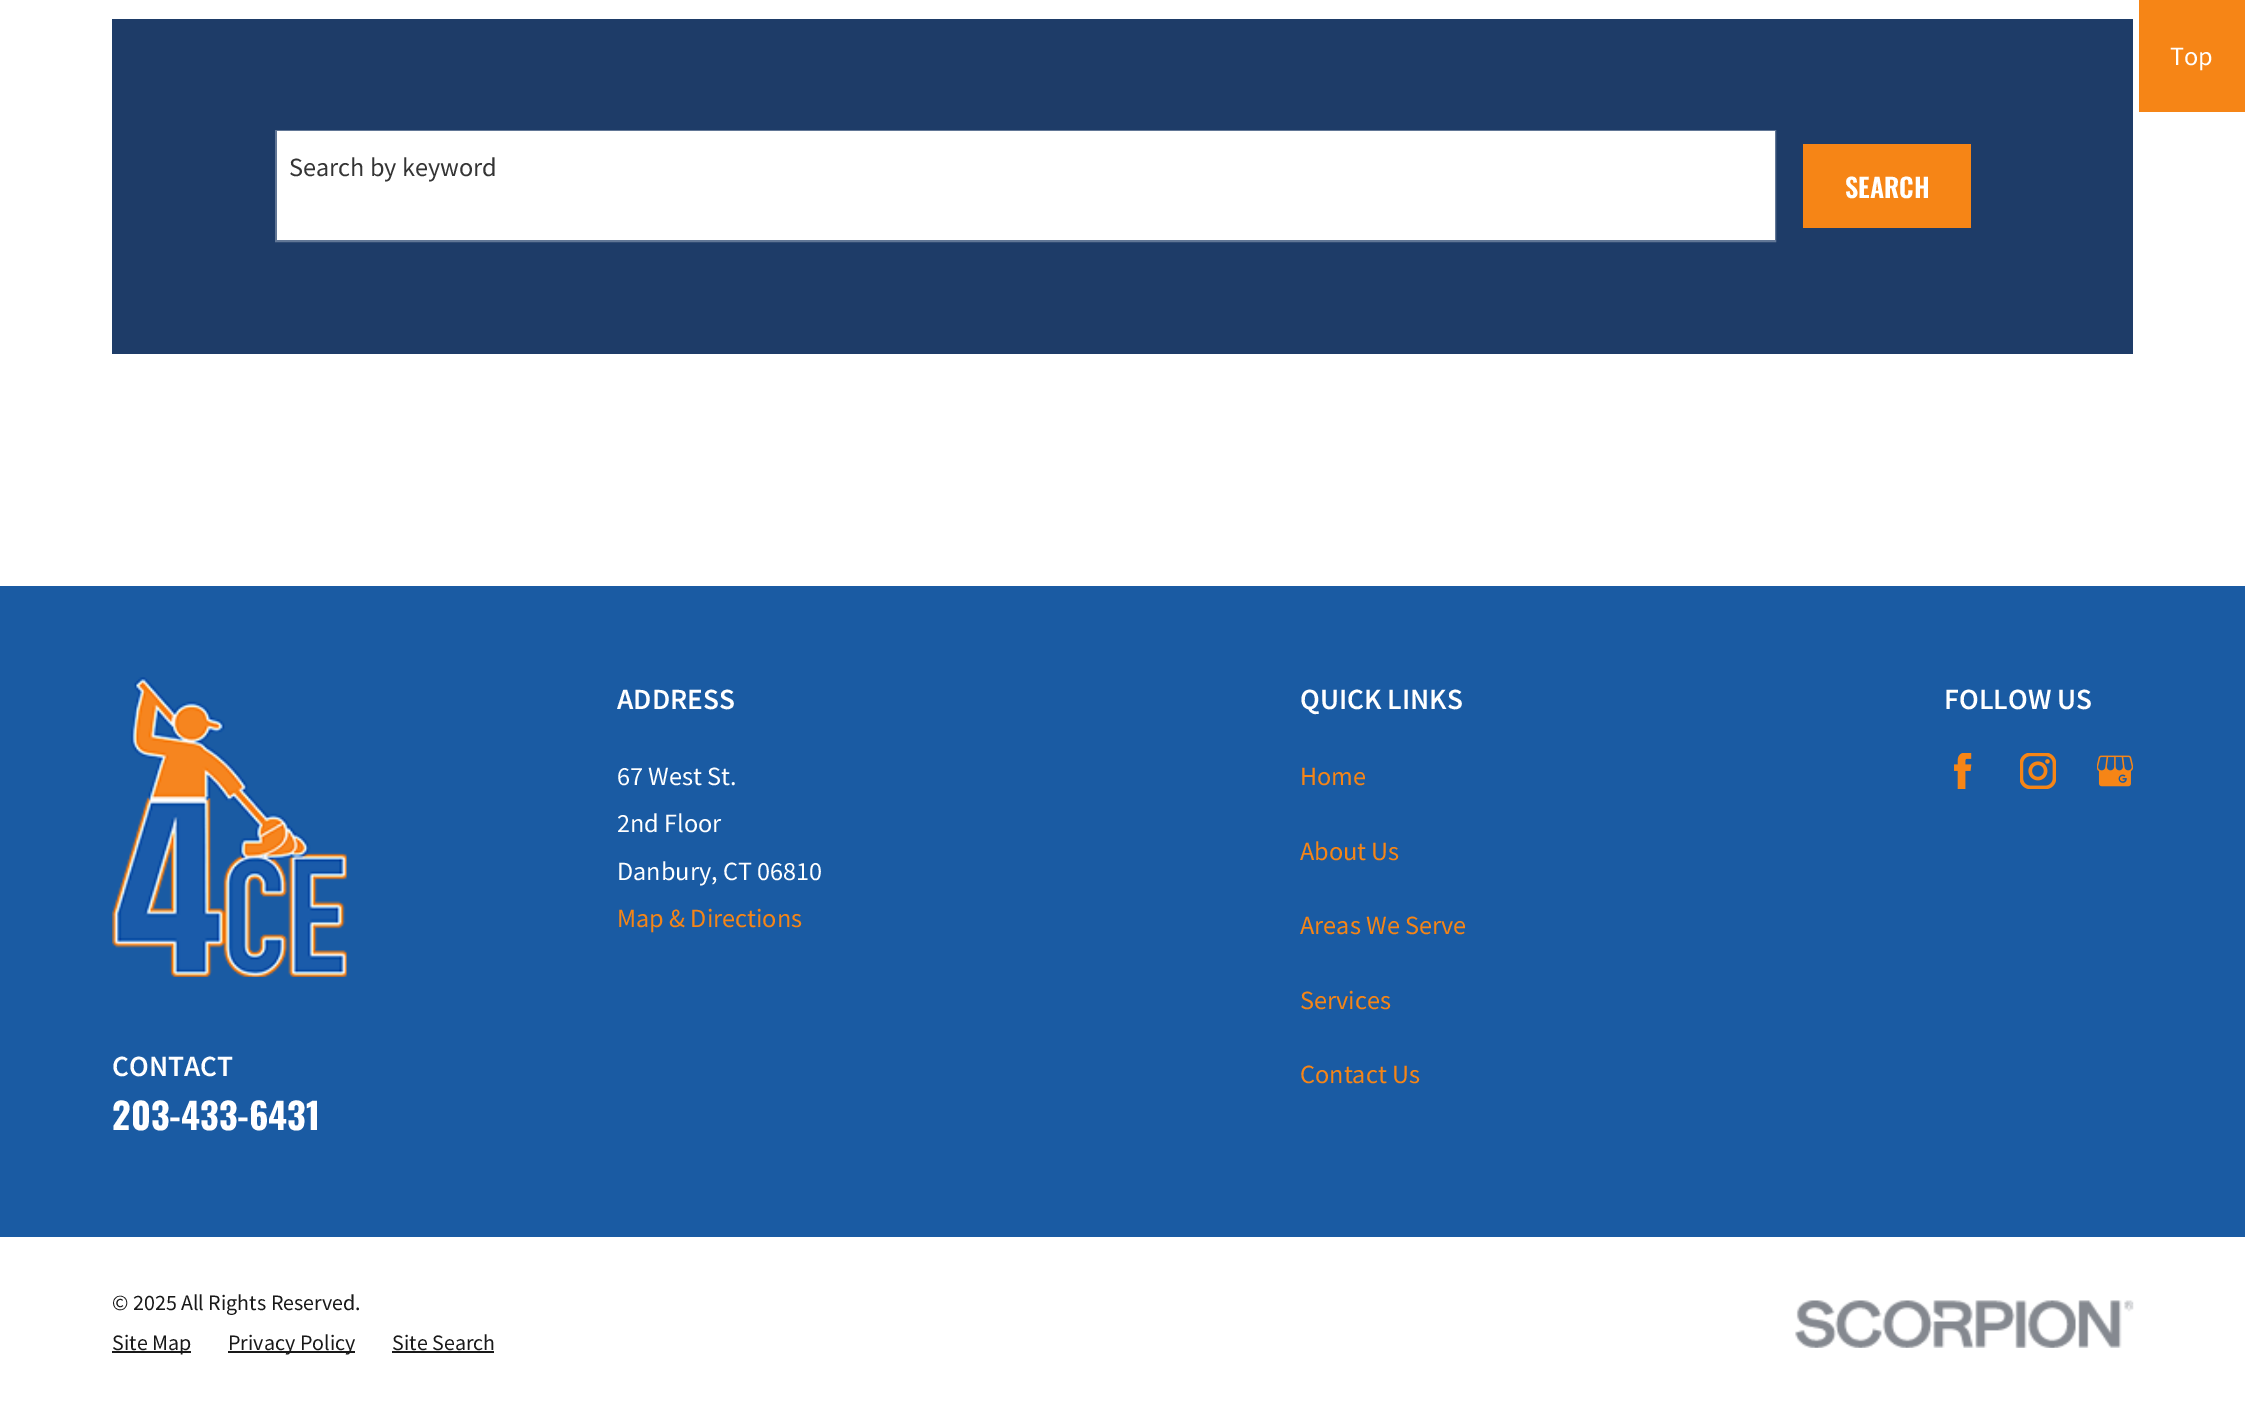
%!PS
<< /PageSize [2245 1409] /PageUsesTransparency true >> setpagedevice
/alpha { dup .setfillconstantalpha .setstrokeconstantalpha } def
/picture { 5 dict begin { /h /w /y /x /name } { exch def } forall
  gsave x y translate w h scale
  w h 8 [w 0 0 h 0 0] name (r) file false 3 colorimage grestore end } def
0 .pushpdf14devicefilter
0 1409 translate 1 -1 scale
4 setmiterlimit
1 setgray
0 0 2245 1409 rectfill
0.965 0.522 0.086 setrgbcolor
2139 0 106 112 rectfill
/SourceSansPro-Regular [26.25 0 0 -26.25 0 0] selectfont
1 setgray
2170 65 moveto (Top) show
0.118 0.235 0.408 setrgbcolor
112 19 2021 335 rectfill
1 setgray
277 131 1498 109 rectfill
0.3 alpha
2 setlinewidth
276 131 1499 110 rectstroke
1 alpha
0.204 setgray
289 176 moveto (Search by keyword) show
0.965 0.522 0.086 setrgbcolor
1803 144 168 84 rectfill
/Oswald-SemiBold [26.25 0 0 -26.25 0 0] selectfont
1 setgray
1845 198 moveto (SEARCH) show
0.102 0.357 0.639 setrgbcolor
0 586 2245 651 rectfill
/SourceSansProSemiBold-SemiBold [29.25 0 0 -29.25 0 0] selectfont
1 setgray
617 709 moveto (ADDRESS) show
/SourceSansPro-Regular [26.25 0 0 -26.25 0 0] selectfont
617 785 moveto (67 West St.) show
617 832 moveto (2nd Floor) show
617 880 moveto (Danbury, CT 06810) show
0.965 0.522 0.086 setrgbcolor
617 927 moveto (Map & Directions) show
/SourceSansProSemiBold-SemiBold [29.25 0 0 -29.25 0 0] selectfont
1 setgray
1300 709 moveto (QUICK LINKS) show
/SourceSansPro-Regular [26.25 0 0 -26.25 0 0] selectfont
0.965 0.522 0.086 setrgbcolor
1300 785 moveto (Home) show
1300 860 moveto (About Us) show
1300 934 moveto (Areas We Serve) show
1300 1009 moveto (Services) show
1300 1083 moveto (Contact Us) show
/SourceSansProSemiBold-SemiBold [29.25 0 0 -29.25 0 0] selectfont
1 setgray
1944 709 moveto (FOLLOW US) show
(img1.rgb) 1954 753 18 36 picture
(img2.rgb) 2020 753 36 36 picture
(img3.rgb) 2097 755 36 32 picture
(img4.rgb) 112 677 235 300 picture
112 1076 moveto (CONTACT) show
/Oswald-Bold [36.25 0 0 -36.25 0 0] selectfont
112 1130 moveto (203-433-6431) show
/SourceSansPro-Regular [22 0 0 -22 0 0] selectfont
0.098 setgray
112 1310 moveto (© 2025 All Rights Reserved.) show
112 1351 79 2 rectfill
112 1350 moveto (Site Map) show
228 1351 127 2 rectfill
228 1350 moveto (Privacy Policy) show
392 1350 moveto (Site Search) show
392 1351 102 2 rectfill
(img5.rgb) 1795 1300 339 48 picture
.poppdf14devicefilter showpage
